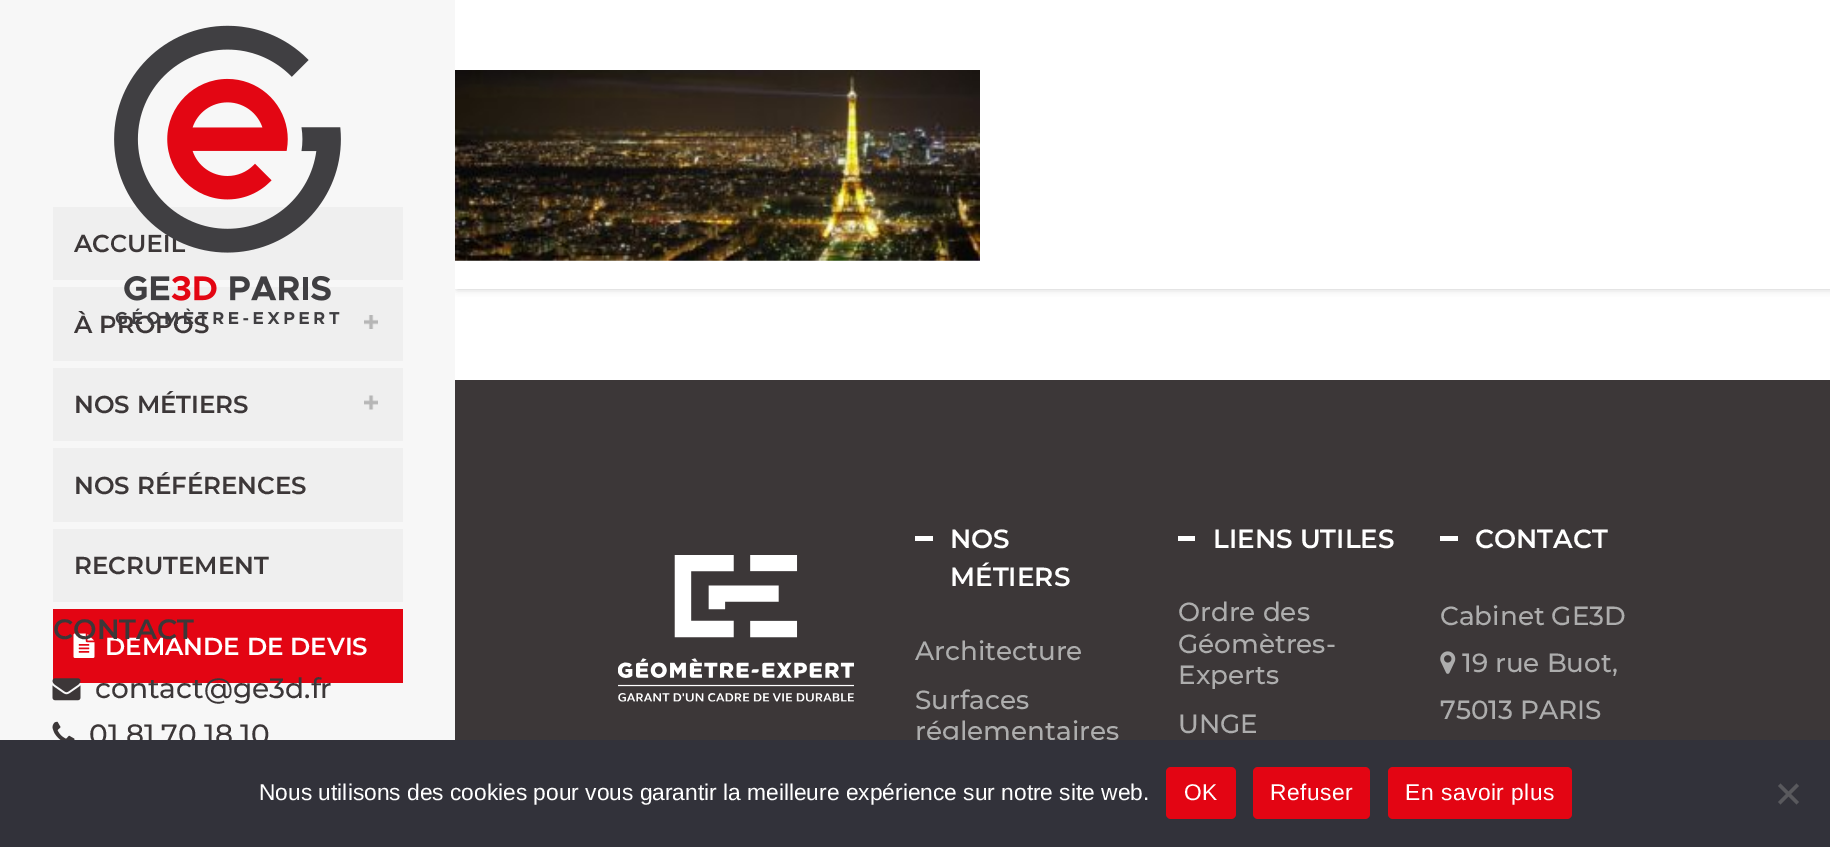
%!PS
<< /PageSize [1830 847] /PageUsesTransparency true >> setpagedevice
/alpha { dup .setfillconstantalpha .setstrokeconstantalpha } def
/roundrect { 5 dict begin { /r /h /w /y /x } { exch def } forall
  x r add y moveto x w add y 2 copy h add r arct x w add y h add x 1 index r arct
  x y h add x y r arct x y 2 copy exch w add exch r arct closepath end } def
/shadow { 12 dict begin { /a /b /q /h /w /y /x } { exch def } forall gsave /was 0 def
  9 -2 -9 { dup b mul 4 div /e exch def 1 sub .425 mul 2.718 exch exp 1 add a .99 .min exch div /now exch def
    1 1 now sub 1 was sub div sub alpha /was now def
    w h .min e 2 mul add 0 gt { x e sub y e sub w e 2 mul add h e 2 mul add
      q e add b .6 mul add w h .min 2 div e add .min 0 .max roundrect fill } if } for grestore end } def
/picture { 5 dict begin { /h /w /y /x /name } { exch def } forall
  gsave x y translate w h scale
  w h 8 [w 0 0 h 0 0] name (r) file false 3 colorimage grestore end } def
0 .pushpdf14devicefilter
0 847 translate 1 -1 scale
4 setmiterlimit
1 setgray
0 0 1830 847 rectfill
gsave
newpath 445 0 moveto 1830 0 lineto 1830 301 lineto 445 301 lineto closepath 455 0 moveto 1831 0 lineto 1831 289 lineto 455 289 lineto closepath eoclip newpath
0.788 0.784 0.784 setrgbcolor
457 0 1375 289 0 3.5 1 shadow
grestore
(img1.rgb) 455 70 525 191 picture
0.969 setgray
0 0 455 740 rectfill
0.937 setgray
53 207 350 73 rectfill
/Montserrat-SemiBold [24.5 0 0 -24.5 0 0] selectfont
0.235 0.216 0.22 setrgbcolor
74 252 moveto (ACCUEIL) show
0.937 setgray
53 287 350 74 rectfill
0.235 0.216 0.22 setrgbcolor
74 333 moveto (À PROPOS) show
(img2.rgb) 114 25 227 300 picture
(img3.rgb) 364 315 14 14 picture
0.937 setgray
53 368 350 73 rectfill
0.235 0.216 0.22 setrgbcolor
74 413 moveto (NOS MÉTIERS) show
(img4.rgb) 364 395 14 15 picture
0.937 setgray
53 448 350 74 rectfill
0.235 0.216 0.22 setrgbcolor
74 494 moveto (NOS RÉFÉRENCES) show
0.937 setgray
53 529 350 73 rectfill
0.235 0.216 0.22 setrgbcolor
74 574 moveto (RECRUTEMENT) show
0.89 0.02 0.075 setrgbcolor
53 609 350 74 rectfill
(img5.rgb) 73 633 22 25 picture
1 setgray
105 655 moveto (DEMANDE DE DEVIS) show
/Montserrat-SemiBold [28 0 0 -28 0 0] selectfont
0.235 0.216 0.22 setrgbcolor
53 639 moveto (CONTACT) show
(img6.rgb) 52 678 29 23 picture
/Montserrat-Medium [28 0 0 -28 0 0] selectfont
95 698 moveto (contact@ge3d.fr) show
(img7.rgb) 52 721 23 19 picture
89 744 moveto (01 81 70 18 10) show
455 380 1375 360 rectfill
(img8.rgb) 618 555 236 147 picture
1 setgray
915 536 18 5 rectfill
/Montserrat-SemiBold [26.25 0 0 -26.25 0 0] selectfont
950 548 moveto (NOS) show
950 586 moveto (MÉTIERS) show
/Montserrat-Medium [26.25 0 0 -26.25 0 0] selectfont
0.678 setgray
915 660 moveto (Architecture) show
915 709 moveto (Surfaces) show
915 740 moveto (réglementaires) show
1 setgray
1178 536 17 5 rectfill
/Montserrat-SemiBold [26.25 0 0 -26.25 0 0] selectfont
1213 548 moveto (LIENS UTILES) show
/Montserrat-Medium [26.25 0 0 -26.25 0 0] selectfont
0.678 setgray
1178 621 moveto (Ordre des) show
1178 653 moveto (Géomètres-) show
1178 684 moveto (Experts) show
1178 733 moveto (UNGE) show
1 setgray
1440 536 18 5 rectfill
/Montserrat-SemiBold [26.25 0 0 -26.25 0 0] selectfont
1475 548 moveto (CONTACT) show
/Montserrat-Medium [26.25 0 0 -26.25 0 0] selectfont
0.678 setgray
1440 625 moveto (Cabinet GE3D) show
(img9.rgb) 1440 651 16 23 picture
1462 672 moveto (19 rue Buot,) show
1440 719 moveto (75013 PARIS) show
0.196 0.196 0.227 setrgbcolor
0 740 1830 107 rectfill
/LiberationSans-Regular [22.75 0 0 -22.75 0 0] selectfont
1 setgray
259 800 moveto (Nous utilisons des cookies pour vous garantir la meilleure expérience sur notre site web.) show
0.89 0.02 0.075 setrgbcolor
1166 767 70 52 5 roundrect fill
1 setgray
1184 800 moveto 0.5 0 (OK) ashow
0.89 0.02 0.075 setrgbcolor
1253 767 117 52 5 roundrect fill
1 setgray
1270 800 moveto 0.5 0 (Refuser) ashow
0.89 0.02 0.075 setrgbcolor
1388 767 184 52 5 roundrect fill
1 setgray
1405 800 moveto 0.5 0 (En savoir plus) ashow
0.349 0.349 0.365 setrgbcolor
newpath 1796.5 783.5 moveto 1799 786 lineto 1780.5 804.5 lineto 1778 802 lineto closepath fill
newpath 1778 786 moveto 1780.5 783.5 lineto 1799 802 lineto 1796.5 804.5 lineto closepath fill
.poppdf14devicefilter showpage
